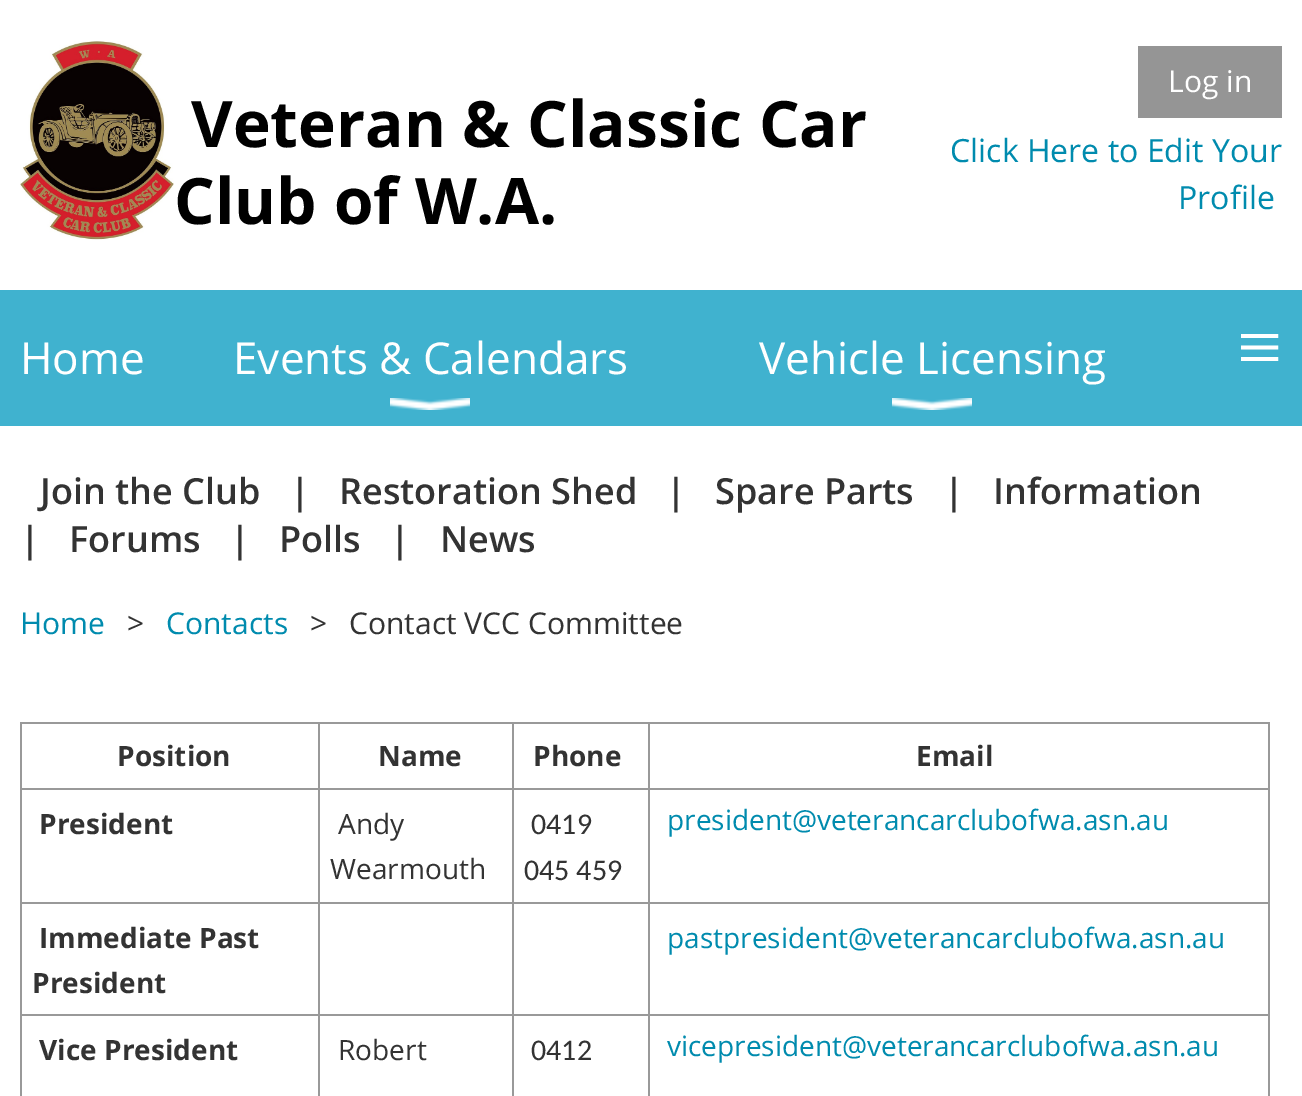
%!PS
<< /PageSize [1302 1096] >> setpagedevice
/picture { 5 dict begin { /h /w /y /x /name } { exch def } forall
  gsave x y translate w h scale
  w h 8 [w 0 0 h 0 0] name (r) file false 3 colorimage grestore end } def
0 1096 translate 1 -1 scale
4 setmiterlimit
1 setgray
0 0 1302 1096 rectfill
(img1.rgb) 20 41 154 199 picture
/OpenSans-Bold [64 0 0 -64 0 0] selectfont
0 setgray
191 147 moveto (Veteran & Classic Car) show
174 224 moveto (Club of W.A.) show
0.584 setgray
1138 46 144 72 rectfill
/OpenSans-Regular [30 0 0 -30 0 0] selectfont
1 setgray
1168 92 moveto (Log in) show
/OpenSans-Regular [32 0 0 -32 0 0] selectfont
0 0.545 0.682 setrgbcolor
950 162 moveto (Click Here to Edit Your) show
1178 209 moveto (Profile) show
0.251 0.698 0.812 setrgbcolor
0 290 1302 136 rectfill
/OpenSans-Regular [44 0 0 -44 0 0] selectfont
1 setgray
20 374 moveto (Home) show
233 374 moveto (Events & Calendars) show
(img2.rgb) 390 398 80 12 picture
759 374 moveto (Vehicle Licensing) show
(img2.rgb) 892 398 80 12 picture
/LiberationSerif-Regular [80 0 0 -80 0 0] selectfont
1237 374 moveto (≡) show
/OpenSans-SemiBold [36 0 0 -36 0 0] selectfont
0.2 setgray
40 504 moveto (Join the Club) show
290 504 moveto (|) show
339 504 moveto (Restoration Shed) show
666 504 moveto (|) show
715 504 moveto (Spare Parts) show
944 504 moveto (|) show
993 504 moveto (Information) show
20 552 moveto (|) show
69 552 moveto (Forums) show
230 552 moveto (|) show
279 552 moveto (Polls) show
390 552 moveto (|) show
440 552 moveto (News) show
/OpenSans-Regular [30 0 0 -30 0 0] selectfont
0 0.545 0.682 setrgbcolor
20 634 moveto (Home) show
0.2 setgray
127 634 moveto (>) show
0 0.545 0.682 setrgbcolor
166 634 moveto (Contacts) show
0.2 setgray
310 634 moveto (>) show
349 634 moveto (Contact VCC Committee) show
0.6 setgray
20 722 1250 2 rectfill
1268 722 2 374 rectfill
20 722 2 374 rectfill
/OpenSans-Bold [28 0 0 -28 0 0] selectfont
0.2 setgray
117 766 moveto (Position) show
0.6 setgray
648 788 622 2 rectfill
648 902 622 2 rectfill
648 1014 622 2 rectfill
648 1014 2 82 rectfill
512 1014 138 2 rectfill
648 902 2 114 rectfill
512 902 138 2 rectfill
648 788 2 116 rectfill
512 788 138 2 rectfill
512 1014 2 82 rectfill
318 1014 196 2 rectfill
512 902 2 114 rectfill
318 902 196 2 rectfill
512 788 2 116 rectfill
318 788 196 2 rectfill
318 1014 2 82 rectfill
20 1014 300 2 rectfill
318 902 2 114 rectfill
20 902 300 2 rectfill
318 788 2 116 rectfill
20 788 300 2 rectfill
318 722 2 68 rectfill
0.2 setgray
378 766 moveto (Name) show
0.6 setgray
512 722 2 68 rectfill
0.2 setgray
533 766 moveto (Phone) show
0.6 setgray
648 722 2 68 rectfill
0.2 setgray
916 766 moveto (Email) show
39 834 moveto (President) show
/OpenSans-Regular [28 0 0 -28 0 0] selectfont
338 834 moveto (Andy) show
330 879 moveto (Wearmouth) show
/Carlito-Regular [30 0 0 -30 0 0] selectfont
531 834 moveto (0419) show
524 880 moveto (045 459) show
/OpenSans-Regular [28 0 0 -28 0 0] selectfont
0 0.545 0.682 setrgbcolor
667 830 moveto (president@veterancarclubofwa.asn.au) show
/OpenSans-Bold [28 0 0 -28 0 0] selectfont
0.2 setgray
39 948 moveto (Immediate Past) show
32 993 moveto (President) show
/OpenSans-Regular [28 0 0 -28 0 0] selectfont
0 0.545 0.682 setrgbcolor
667 948 moveto (pastpresident@veterancarclubofwa.asn.au) show
/OpenSans-Bold [28 0 0 -28 0 0] selectfont
0.2 setgray
39 1060 moveto (Vice President) show
/OpenSans-Regular [28 0 0 -28 0 0] selectfont
338 1060 moveto (Robert) show
/Carlito-Regular [30 0 0 -30 0 0] selectfont
531 1060 moveto (0412) show
/OpenSans-Regular [28 0 0 -28 0 0] selectfont
0 0.545 0.682 setrgbcolor
667 1056 moveto (vicepresident@veterancarclubofwa.asn.au) show
showpage
